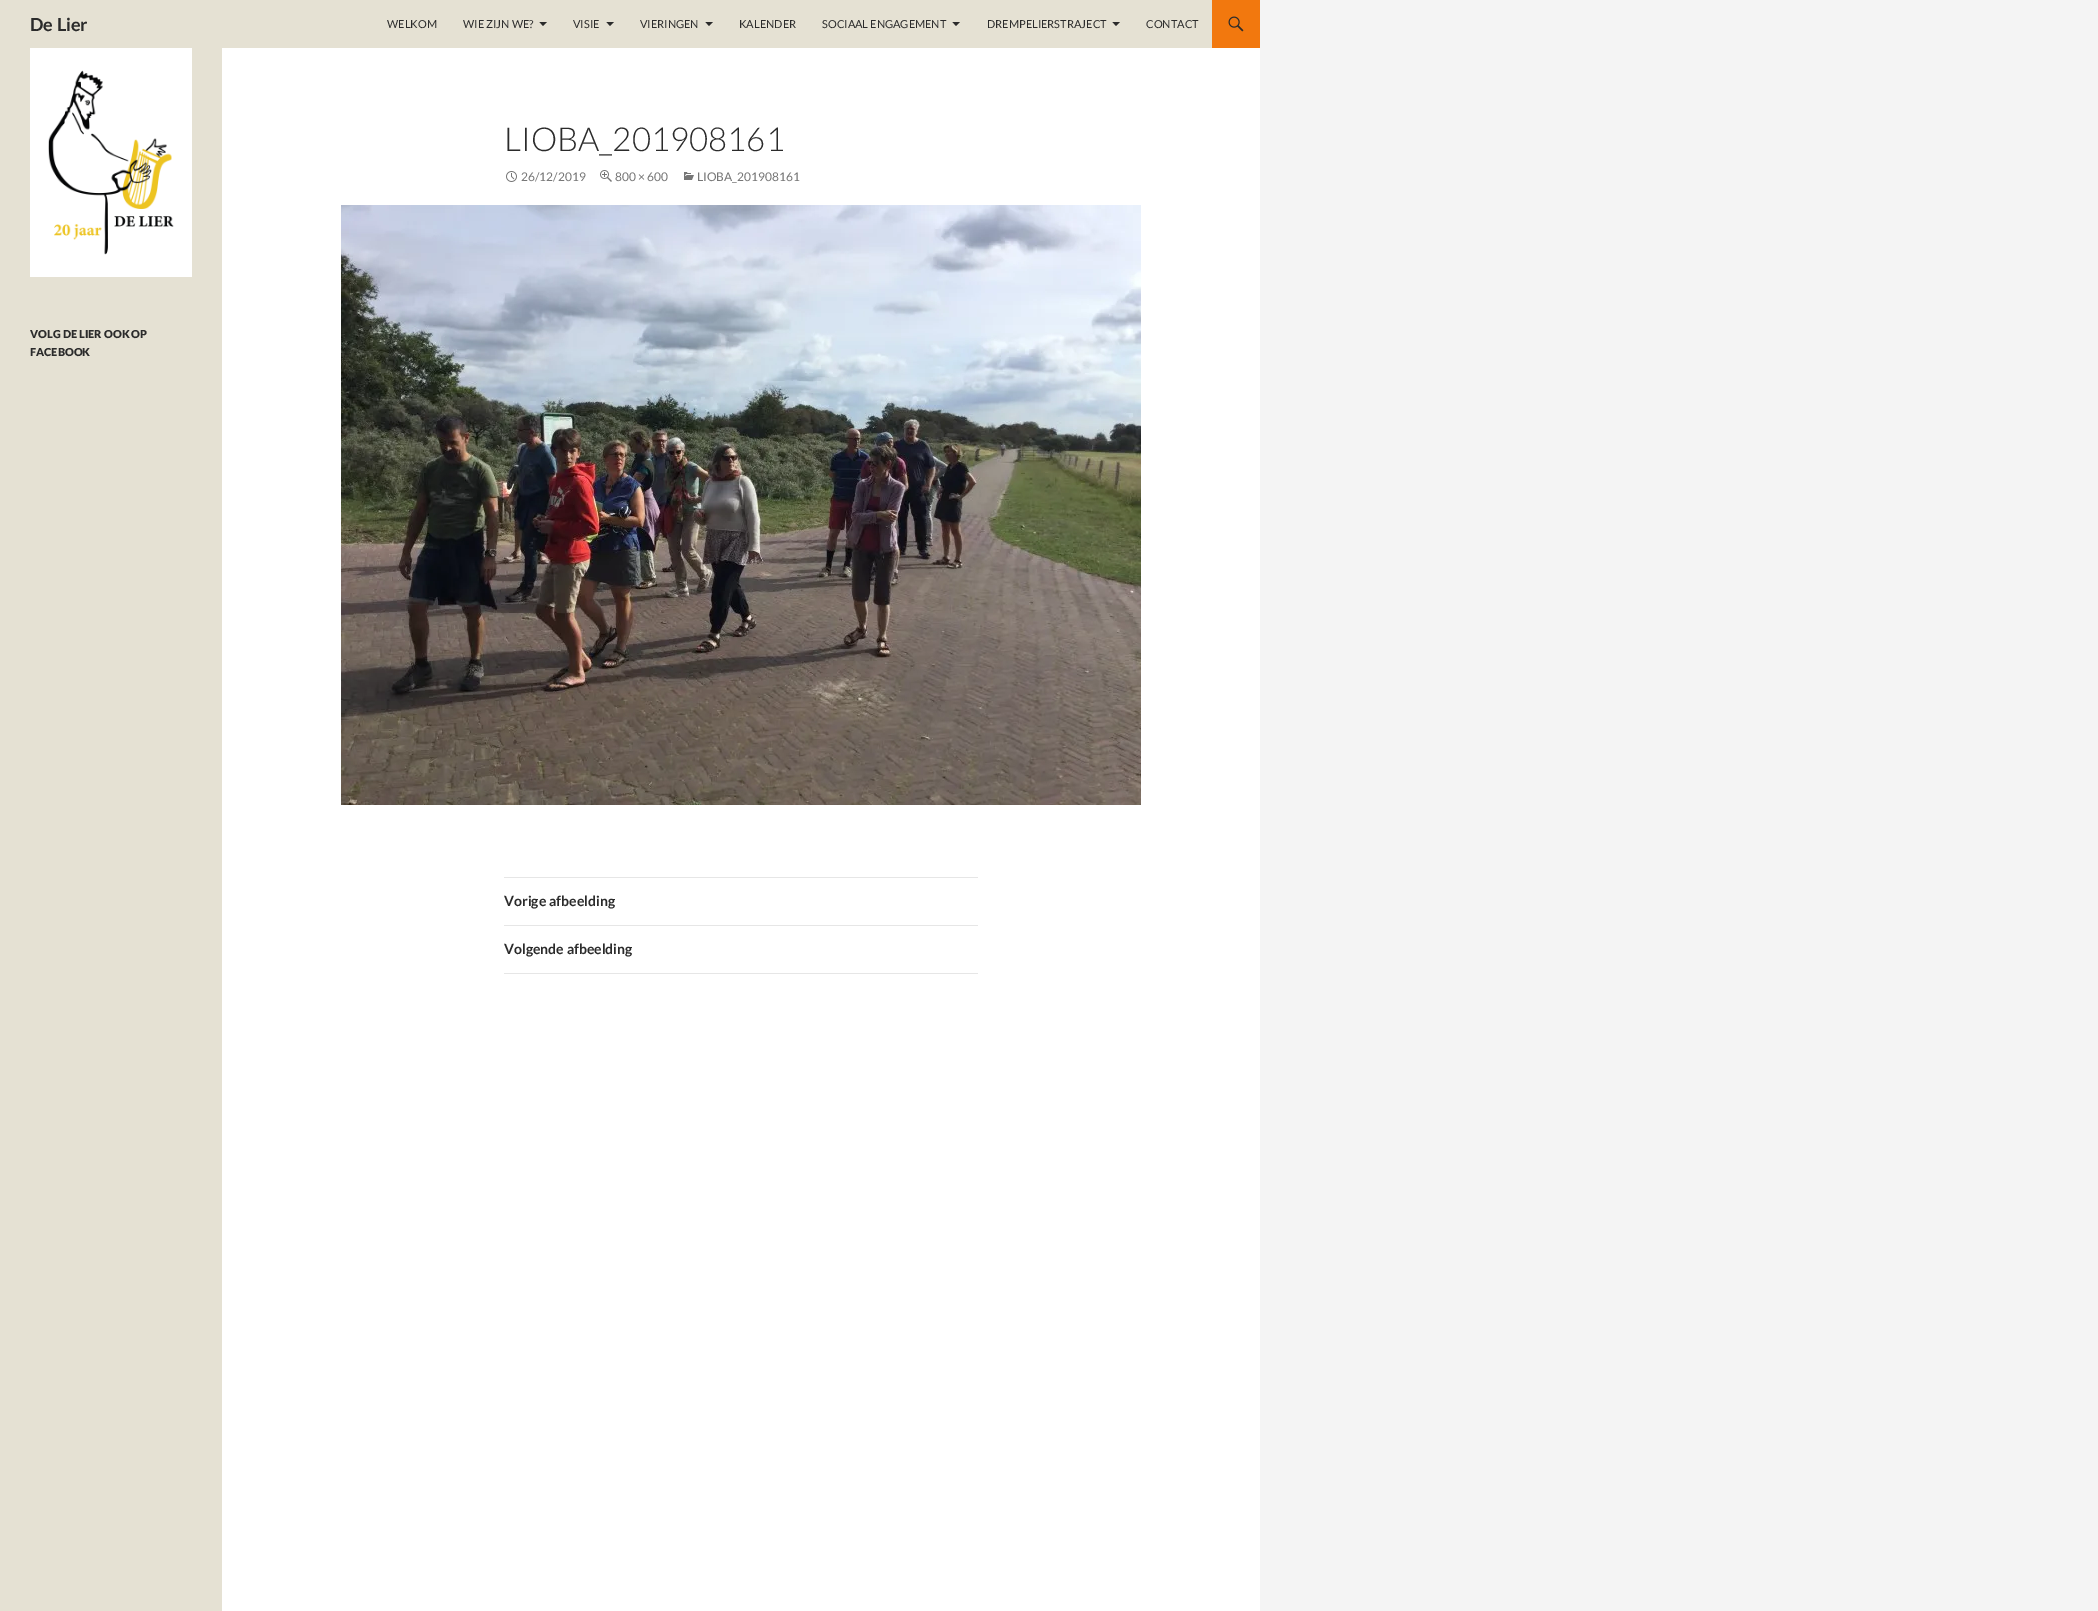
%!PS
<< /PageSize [2098 1611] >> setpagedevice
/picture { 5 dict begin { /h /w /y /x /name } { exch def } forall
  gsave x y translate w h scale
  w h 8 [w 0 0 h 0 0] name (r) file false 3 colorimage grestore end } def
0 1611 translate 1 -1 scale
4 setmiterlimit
0.957 setgray
0 0 2098 1611 rectfill
1 setgray
222 48 1038 1563 rectfill
0.898 0.882 0.827 setrgbcolor
0 0 1212 48 rectfill
/Lato-Bold [18 0 0 -18 0 0] selectfont
0.169 setgray
30 31 moveto (De Lier) show
/Lato-Regular [11 0 0 -11 0 0] selectfont
387 28 moveto (WELKOM) show
463 28 moveto (WIE ZIJN WE?) show
newpath 539.5 22 moveto 547 22 lineto 543 26 lineto closepath fill
573 28 moveto (VISIE) show
newpath 606.5 22 moveto 614 22 lineto 610 26 lineto closepath fill
640 28 moveto (VIERINGEN) show
newpath 705.5 22 moveto 713 22 lineto 709 26 lineto closepath fill
739 28 moveto (KALENDER) show
822 28 moveto (SOCIAAL ENGAGEMENT) show
newpath 952.5 22 moveto 960 22 lineto 956 26 lineto closepath fill
987 28 moveto (DREMPELIERSTRAJECT) show
newpath 1112.5 22 moveto 1120 22 lineto 1116 26 lineto closepath fill
1146 28 moveto (CONTACT) show
0.949 0.471 0.055 setrgbcolor
1212 0 48 48 rectfill
(img1.rgb) 1228 16 16 16 picture
0.898 0.882 0.827 setrgbcolor
0 48 222 1563 rectfill
(img2.rgb) 30 48 162 229 picture
/Lato-Black [11 0 0 -11 0 0] selectfont
0.169 setgray
30 338 moveto (VOLG DE LIER OOK OP) show
30 356 moveto (FACEBOOK) show
/Lato-Light [33 0 0 -33 0 0] selectfont
504 151 moveto (LIOBA_201908161) show
(img3.rgb) 506 171 11 11 picture
/Lato-Regular [12 0 0 -12 0 0] selectfont
0.463 setgray
521 181 moveto (26/12/2019) show
(img4.rgb) 600 170 12 12 picture
615 181 moveto (800 × 600) show
(img5.rgb) 684 172 10 8 picture
697 181 moveto (LIOBA_201908161) show
(img6.rgb) 341 205 800 600 picture
0.902 setgray
504 877 474 1 rectfill
504 925 474 1 rectfill
/Lato-Bold [14 0 0 -14 0 0] selectfont
0.169 setgray
504 906 moveto (Vorige afbeelding) show
0.902 setgray
504 973 474 1 rectfill
0.169 setgray
504 954 moveto (Volgende afbeelding) show
showpage
